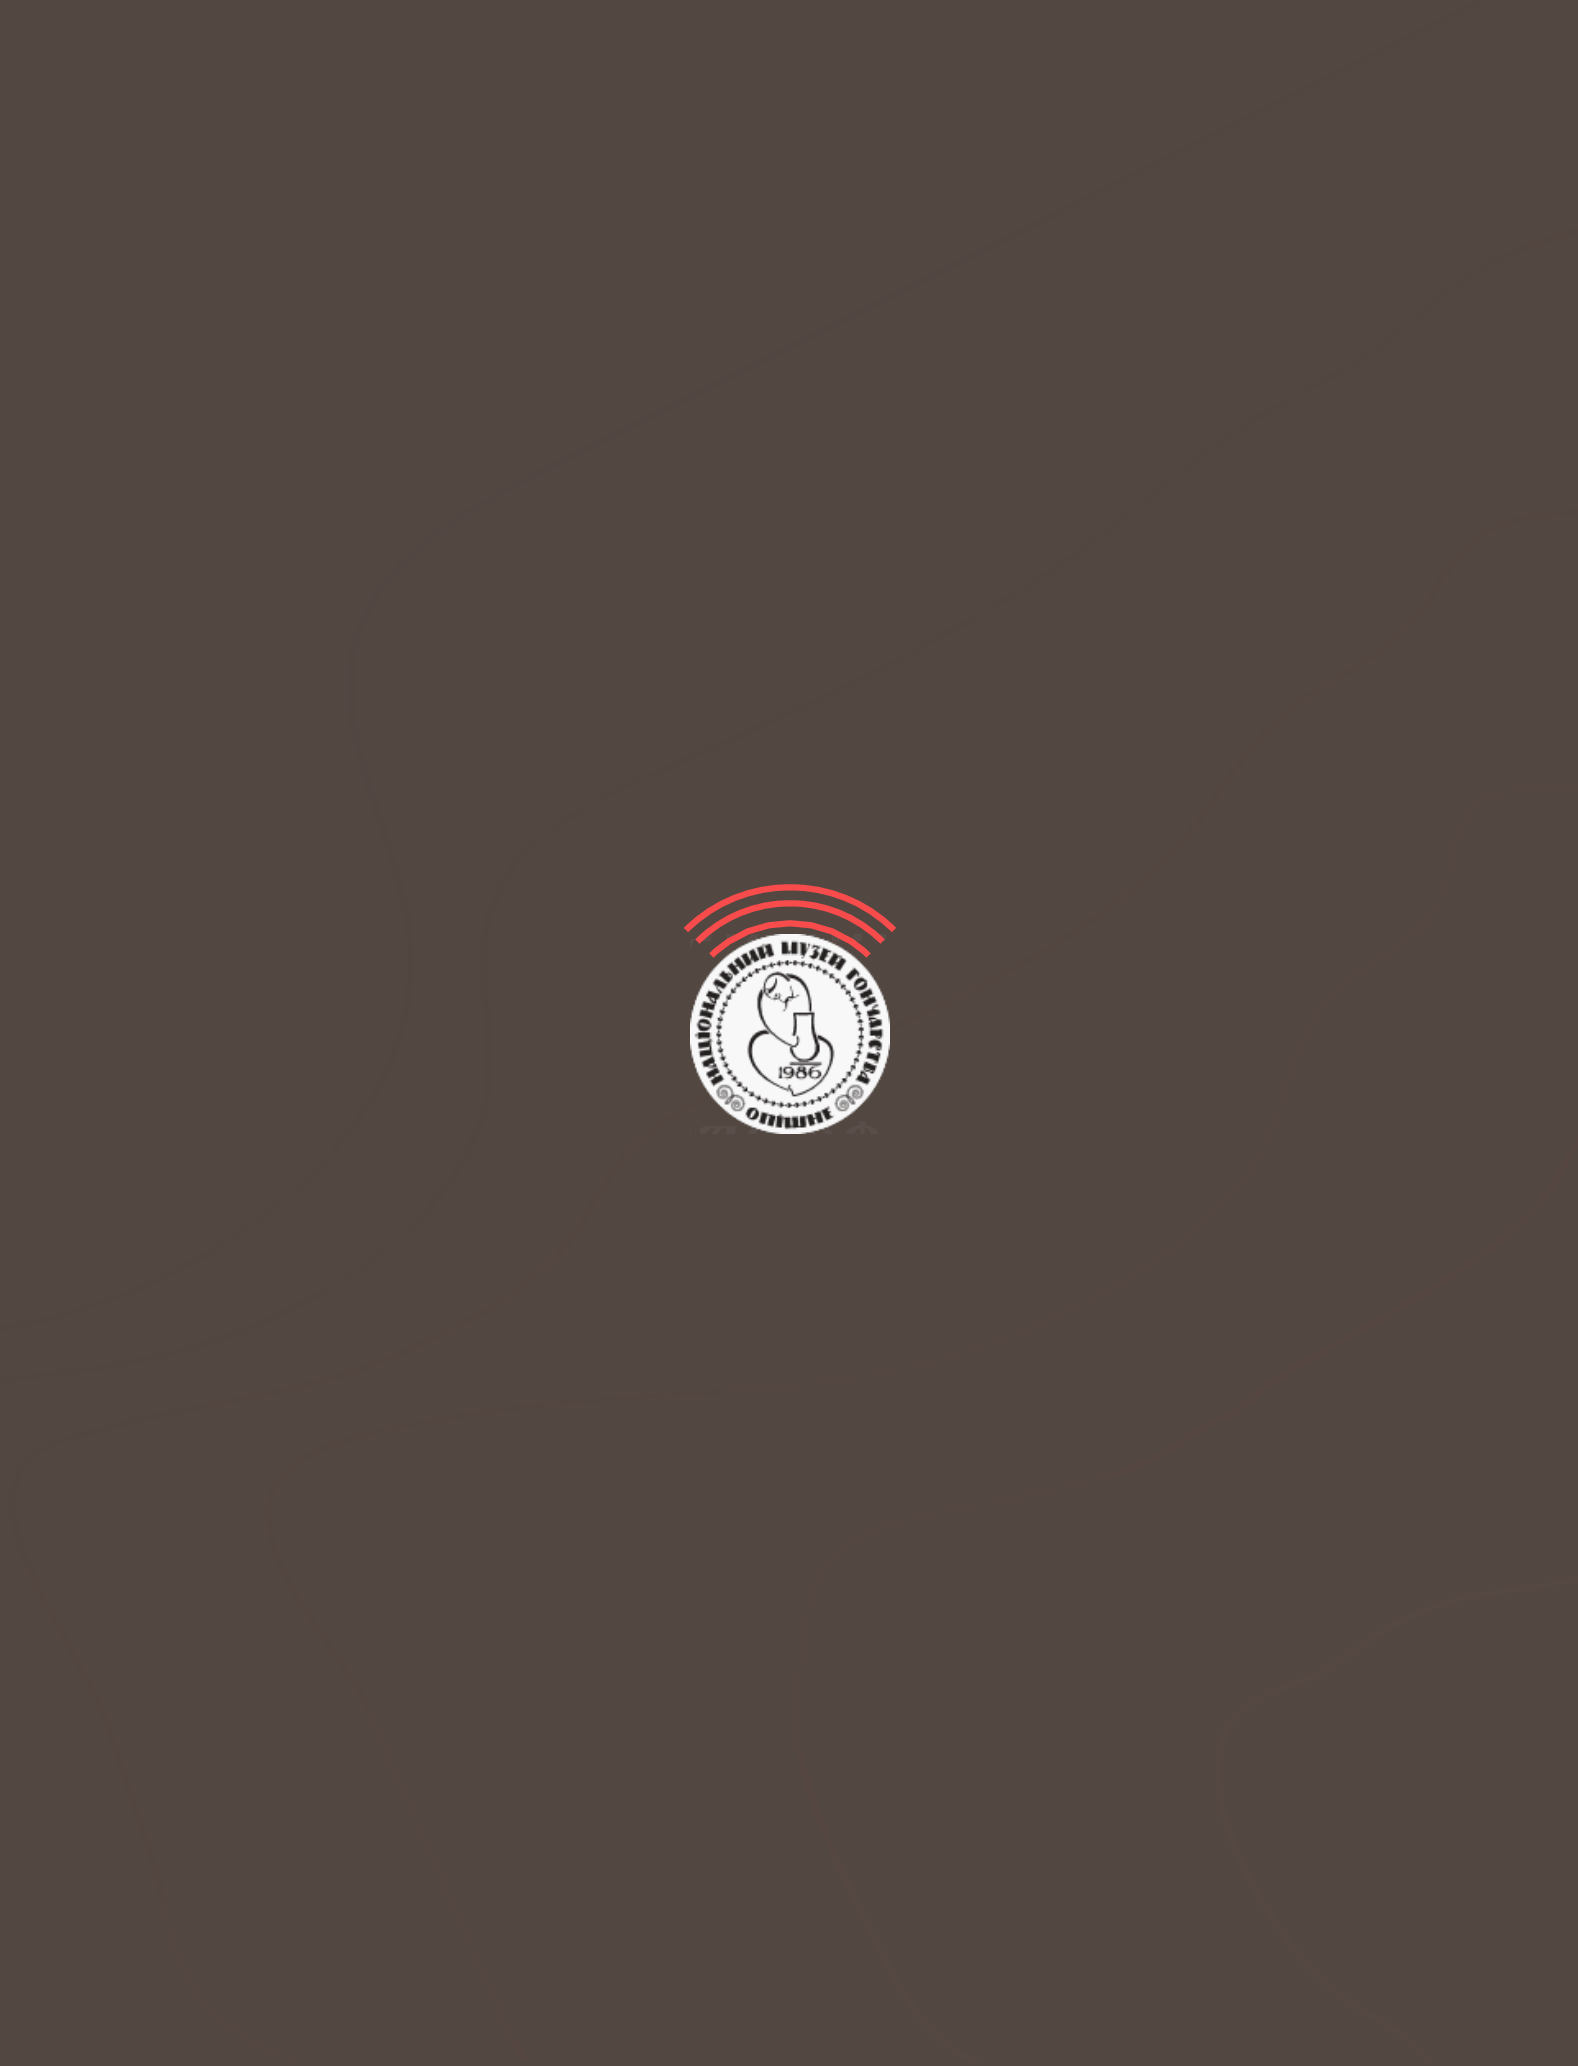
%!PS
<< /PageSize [1578 2066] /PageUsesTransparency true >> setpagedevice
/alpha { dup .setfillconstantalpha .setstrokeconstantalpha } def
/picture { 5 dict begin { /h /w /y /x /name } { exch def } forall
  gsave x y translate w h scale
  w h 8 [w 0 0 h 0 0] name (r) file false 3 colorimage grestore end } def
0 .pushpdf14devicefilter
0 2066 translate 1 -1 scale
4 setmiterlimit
0.322 0.278 0.255 setrgbcolor
0 0 1578 2066 rectfill
(img1.rgb) 0 0 1578 2065 picture
(img2.rgb) 690 934 200 200 picture
0.96 alpha
1 0.298 0.298 setrgbcolor
6 setlinewidth
newpath 686 930 moveto 743 873 837 873 894 930 curveto stroke
newpath 697.5 941.5 moveto 748.5 890.5 831.5 890.5 882.5 941.5 curveto stroke
newpath 711.5 955.5 moveto 754.5 912.5 825.5 912.5 868.5 955.5 curveto stroke
.poppdf14devicefilter showpage
